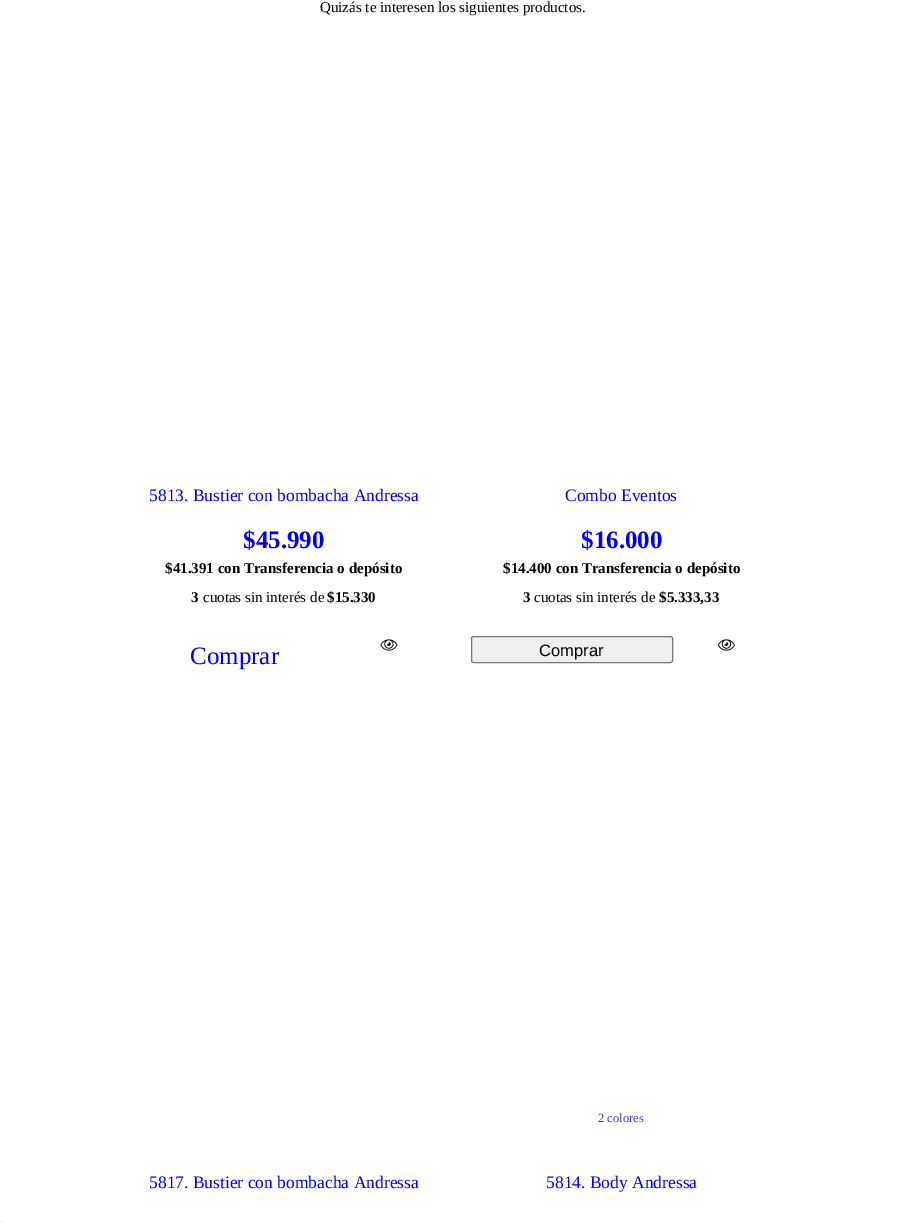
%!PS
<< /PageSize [905 1223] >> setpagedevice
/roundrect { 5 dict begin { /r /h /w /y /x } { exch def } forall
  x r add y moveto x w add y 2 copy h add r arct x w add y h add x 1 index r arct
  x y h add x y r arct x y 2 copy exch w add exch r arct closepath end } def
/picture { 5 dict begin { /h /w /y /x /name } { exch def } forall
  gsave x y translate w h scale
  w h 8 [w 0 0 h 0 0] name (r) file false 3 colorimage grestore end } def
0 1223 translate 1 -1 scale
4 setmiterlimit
1 setgray
0 0 905 1223 rectfill
/LiberationSerif-Regular [15 0 0 -15 0 0] selectfont
0 setgray
320 12 moveto (Quizás te interesen los siguientes productos.) show
/LiberationSerif-Regular [17.5 0 0 -17.5 0 0] selectfont
0 0 0.933 setrgbcolor
149 501 moveto (5813. Bustier con bombacha Andressa) show
/LiberationSerif-Bold [25 0 0 -25 0 0] selectfont
243 548 moveto ($45.990) show
/LiberationSerif-Bold [15 0 0 -15 0 0] selectfont
0 setgray
165 573 moveto ($41.391 con Transferencia o depósito) show
191 602 moveto (3) show
/LiberationSerif-Regular [15 0 0 -15 0 0] selectfont
203 602 moveto (cuotas sin interés de) show
/LiberationSerif-Bold [15 0 0 -15 0 0] selectfont
327 602 moveto ($15.330) show
(img1.rgb) 380 639 18 12 picture
/LiberationSerif-Regular [25 0 0 -25 0 0] selectfont
0 0 0.933 setrgbcolor
190 664 moveto (Comprar) show
/LiberationSerif-Regular [17.5 0 0 -17.5 0 0] selectfont
565 501 moveto (Combo Eventos) show
/LiberationSerif-Bold [25 0 0 -25 0 0] selectfont
581 548 moveto ($16.000) show
/LiberationSerif-Bold [15 0 0 -15 0 0] selectfont
0 setgray
503 573 moveto ($14.400 con Transferencia o depósito) show
523 602 moveto (3) show
/LiberationSerif-Regular [15 0 0 -15 0 0] selectfont
534 602 moveto (cuotas sin interés de) show
/LiberationSerif-Bold [15 0 0 -15 0 0] selectfont
659 602 moveto ($5.333,33) show
0.937 setgray
471.5 636.5 201 26 2 roundrect gsave fill grestore
0.463 setgray
stroke
/LiberationSans-Regular [16.5 0 0 -16.5 0 0] selectfont
0 setgray
539 656 moveto (Comprar) show
(img2.rgb) 718 639 17 12 picture
/LiberationSerif-Regular [17.5 0 0 -17.5 0 0] selectfont
0 0 0.933 setrgbcolor
149 1188 moveto (5817. Bustier con bombacha Andressa) show
/LiberationSerif-Regular [12.5 0 0 -12.5 0 0] selectfont
0.2 0.2 0.945 setrgbcolor
598 1122 moveto (2 colores) show
/LiberationSerif-Regular [17.5 0 0 -17.5 0 0] selectfont
0 0 0.933 setrgbcolor
546 1188 moveto (5814. Body Andressa) show
0.961 setgray
0 1221 3 2 rectfill
showpage
